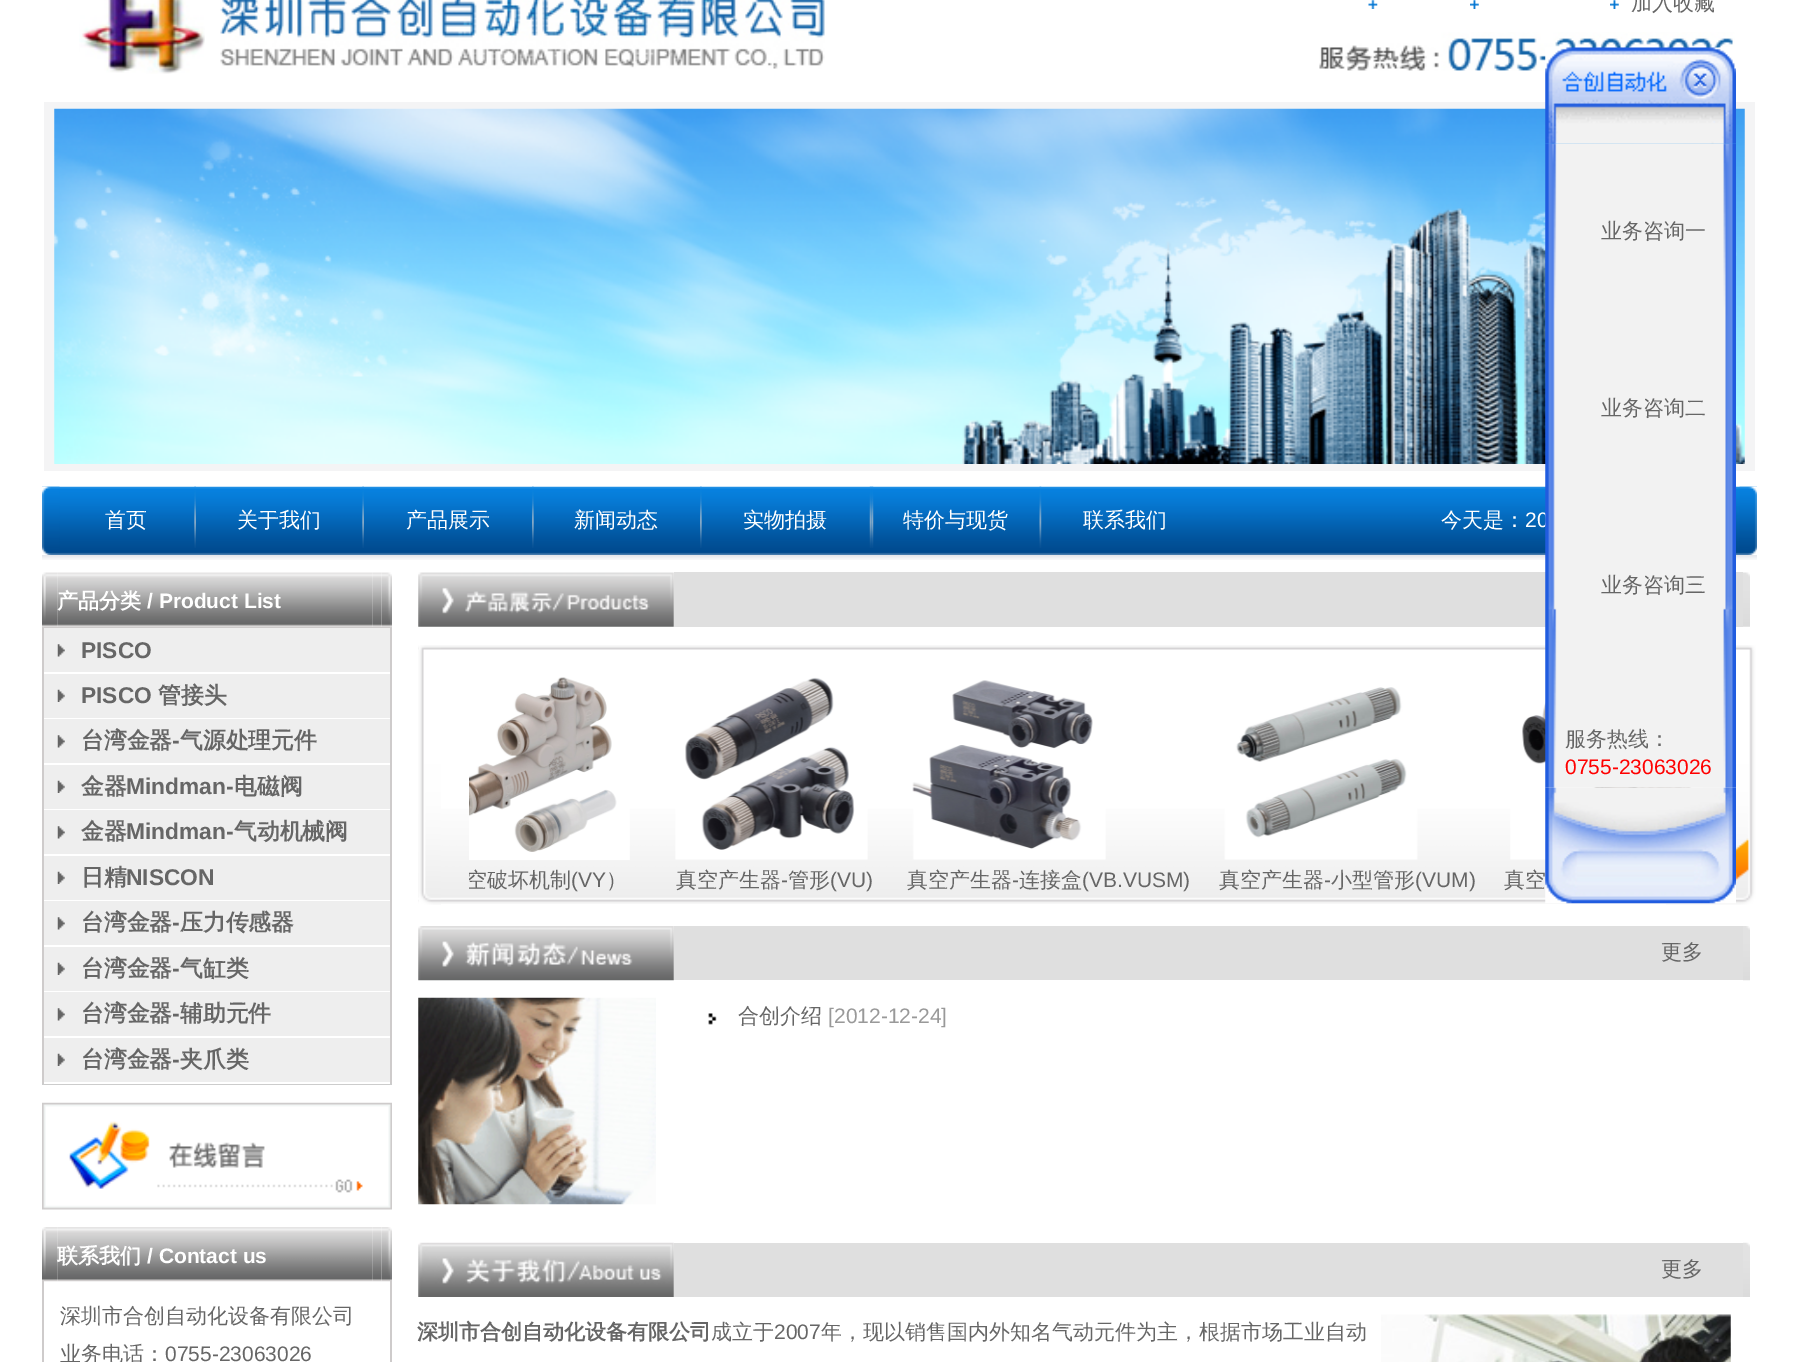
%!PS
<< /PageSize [1797 1362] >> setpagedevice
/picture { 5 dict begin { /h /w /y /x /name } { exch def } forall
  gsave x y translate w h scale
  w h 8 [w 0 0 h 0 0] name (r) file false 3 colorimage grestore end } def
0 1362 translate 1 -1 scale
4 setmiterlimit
1 setgray
0 0 1797 1362 rectfill
(img1.rgb) 79 0 126 74 picture
(img2.rgb) 220 0 605 69 picture
(img3.rgb) 1368 0 10 9 picture
(img4.rgb) 1470 0 9 9 picture
(img4.rgb) 1610 0 9 9 picture
/WenQuanYiZenHei-Medium [21 0 0 -21 0 0] selectfont
0.4 setgray
1631 10 moveto (加入收藏) show
(img5.rgb) 1319 32 416 39 picture
0.957 0.957 0.961 setrgbcolor
44 102 1711 369 rectfill
(img6.rgb) 54 108 1691 356 picture
(img7.rgb) 42 486 1715 69 picture
(img8.rgb) 42 486 18 69 picture
1 setgray
105 527 moveto (首页) show
(img9.rgb) 194 486 2 62 picture
237 527 moveto (关于我们) show
(img10.rgb) 362 486 2 62 picture
406 527 moveto (产品展示) show
(img11.rgb) 532 486 2 62 picture
574 527 moveto (新闻动态) show
(img11.rgb) 700 486 2 62 picture
743 527 moveto (实物拍摄) show
(img12.rgb) 869 486 3 62 picture
(img13.rgb) 871 486 3 62 picture
903 527 moveto (特价与现货) show
(img14.rgb) 1039 486 3 62 picture
1083 527 moveto (联系我们) show
1441 527 moveto (今天是：) show
/LiberationSans-Regular [21 0 0 -21 0 0] selectfont
1525 527 moveto (20) show
(img15.rgb) 1739 486 18 69 picture
(img19.rgb) 42 555 1715 5 picture
0.875 setgray
674 572 872 55 rectfill
(img33.rgb) 418 645 1248 259 picture
(img35.rgb) 1666 645 91 260 picture
(img40.rgb) 1510 681 193 179 picture
(img17.rgb) 1545 143 191 645 picture
(img16.rgb) 1545 47 191 97 picture
/WenQuanYiZenHei-Medium [21 0 0 -21 0 0] selectfont
0.4 setgray
1601 238 moveto (业务咨询一) show
1601 415 moveto (业务咨询二) show
1601 592 moveto (业务咨询三) show
1565 746 moveto (服务热线：) show
/LiberationSans-Regular [21 0 0 -21 0 0] selectfont
1 0 0 setrgbcolor
1565 774 moveto (0755-23063026) show
(img18.rgb) 1545 787 191 117 picture
(img21.rgb) 57 572 316 55 picture
(img20.rgb) 42 572 16 55 picture
/WenQuanYiZenHei-Bold [21 0 0 -21 0 0] selectfont
1 setgray
57 608 moveto (产品分类) show
/LiberationSans-Bold [21 0 0 -21 0 0] selectfont
147 608 moveto (/ Product List) show
(img22.rgb) 372 572 10 55 picture
(img23.rgb) 381 572 11 55 picture
0.8 setgray
42 1083 350 2 rectfill
0.808 0.796 0.796 setrgbcolor
42 627 350 1 rectfill
390 627 2 456 rectfill
42 627 2 456 rectfill
0.933 setgray
44 628 346 44 rectfill
(img24.rgb) 57 644 8 13 picture
/LiberationSans-Bold [22.75 0 0 -22.75 0 0] selectfont
0.4 setgray
81 658 moveto (PISCO) show
0.933 setgray
44 674 346 44 rectfill
(img25.rgb) 57 689 8 13 picture
0.4 setgray
81 703 moveto (PISCO) show
/WenQuanYiZenHei-Bold [22.75 0 0 -22.75 0 0] selectfont
158 703 moveto (管接头) show
0.933 setgray
44 719 346 44 rectfill
(img24.rgb) 57 735 8 13 picture
0.4 setgray
81 748 moveto (台湾金器) show
/LiberationSans-Bold [22.75 0 0 -22.75 0 0] selectfont
172 748 moveto (-) show
/WenQuanYiZenHei-Bold [22.75 0 0 -22.75 0 0] selectfont
180 748 moveto (气源处理元件) show
0.933 setgray
44 765 346 44 rectfill
(img25.rgb) 57 780 8 13 picture
0.4 setgray
81 794 moveto (金器) show
/LiberationSans-Bold [22.75 0 0 -22.75 0 0] selectfont
126 794 moveto (Mindman-) show
/WenQuanYiZenHei-Bold [22.75 0 0 -22.75 0 0] selectfont
234 794 moveto (电磁阀) show
0.933 setgray
44 810 346 44 rectfill
(img24.rgb) 57 826 8 13 picture
0.4 setgray
81 839 moveto (金器) show
/LiberationSans-Bold [22.75 0 0 -22.75 0 0] selectfont
126 839 moveto (Mindman-) show
/WenQuanYiZenHei-Bold [22.75 0 0 -22.75 0 0] selectfont
234 839 moveto (气动机械阀) show
0.933 setgray
44 856 346 44 rectfill
(img25.rgb) 57 871 8 13 picture
0.4 setgray
81 885 moveto (日精) show
/LiberationSans-Bold [22.75 0 0 -22.75 0 0] selectfont
126 885 moveto (NISCON) show
0.933 setgray
44 901 346 44 rectfill
(img24.rgb) 57 917 8 13 picture
/WenQuanYiZenHei-Bold [22.75 0 0 -22.75 0 0] selectfont
0.4 setgray
81 930 moveto (台湾金器) show
/LiberationSans-Bold [22.75 0 0 -22.75 0 0] selectfont
172 930 moveto (-) show
/WenQuanYiZenHei-Bold [22.75 0 0 -22.75 0 0] selectfont
180 930 moveto (压力传感器) show
0.933 setgray
44 947 346 44 rectfill
(img25.rgb) 57 962 8 13 picture
0.4 setgray
81 976 moveto (台湾金器) show
/LiberationSans-Bold [22.75 0 0 -22.75 0 0] selectfont
172 976 moveto (-) show
/WenQuanYiZenHei-Bold [22.75 0 0 -22.75 0 0] selectfont
180 976 moveto (气缸类) show
0.933 setgray
44 992 346 44 rectfill
(img24.rgb) 57 1008 8 13 picture
0.4 setgray
81 1021 moveto (台湾金器) show
/LiberationSans-Bold [22.75 0 0 -22.75 0 0] selectfont
172 1021 moveto (-) show
/WenQuanYiZenHei-Bold [22.75 0 0 -22.75 0 0] selectfont
180 1021 moveto (辅助元件) show
0.933 setgray
44 1038 346 44 rectfill
1 setgray
44 1083 346 1 rectfill
(img25.rgb) 57 1053 8 13 picture
0.4 setgray
81 1067 moveto (台湾金器) show
/LiberationSans-Bold [22.75 0 0 -22.75 0 0] selectfont
172 1067 moveto (-) show
/WenQuanYiZenHei-Bold [22.75 0 0 -22.75 0 0] selectfont
180 1067 moveto (夹爪类) show
(img26.rgb) 42 1102 350 108 picture
(img28.rgb) 57 1227 316 55 picture
0.808 0.796 0.796 setrgbcolor
42 1281 2 81 rectfill
(img27.rgb) 42 1227 16 55 picture
/WenQuanYiZenHei-Bold [21 0 0 -21 0 0] selectfont
1 setgray
57 1263 moveto (联系我们) show
/LiberationSans-Bold [21 0 0 -21 0 0] selectfont
147 1263 moveto (/ Contact us) show
(img29.rgb) 372 1227 10 55 picture
0.808 0.796 0.796 setrgbcolor
390 1281 2 81 rectfill
(img30.rgb) 381 1227 11 55 picture
/WenQuanYiZenHei-Medium [21 0 0 -21 0 0] selectfont
0.4 setgray
60 1323 moveto (深圳市合创自动化设备有限公司) show
60 1361 moveto (业务电话：) show
/LiberationSans-Regular [21 0 0 -21 0 0] selectfont
165 1361 moveto (0755-23063026) show
(img31.rgb) 418 572 256 55 picture
0.875 setgray
1736 572 7 55 rectfill
(img32.rgb) 1743 572 7 55 picture
(img34.rgb) 418 645 23 260 picture
(img36.rgb) 469 677 161 183 picture
gsave
469 667 1260 227 rectclip
/WenQuanYiZenHei-Medium [21 0 0 -21 0 0] selectfont
0.4 setgray
466 887 moveto (空破坏机制) show
grestore
0.4 setgray
571 887 moveto (\(VY) show
/WenQuanYiZenHei-Medium [21 0 0 -21 0 0] selectfont
606 887 moveto (）) show
(img37.rgb) 675 677 193 183 picture
676 887 moveto (真空产生器) show
/LiberationSans-Regular [21 0 0 -21 0 0] selectfont
781 887 moveto (-) show
/WenQuanYiZenHei-Medium [21 0 0 -21 0 0] selectfont
788 887 moveto (管形) show
/LiberationSans-Regular [21 0 0 -21 0 0] selectfont
830 887 moveto (\(VU\)) show
(img38.rgb) 912 680 194 180 picture
/WenQuanYiZenHei-Medium [21 0 0 -21 0 0] selectfont
907 887 moveto (真空产生器) show
/LiberationSans-Regular [21 0 0 -21 0 0] selectfont
1012 887 moveto (-) show
/WenQuanYiZenHei-Medium [21 0 0 -21 0 0] selectfont
1019 887 moveto (连接盒) show
/LiberationSans-Regular [21 0 0 -21 0 0] selectfont
1082 887 moveto (\(VB.VUSM\)) show
(img39.rgb) 1224 687 194 173 picture
/WenQuanYiZenHei-Medium [21 0 0 -21 0 0] selectfont
1219 887 moveto (真空产生器) show
/LiberationSans-Regular [21 0 0 -21 0 0] selectfont
1324 887 moveto (-) show
/WenQuanYiZenHei-Medium [21 0 0 -21 0 0] selectfont
1331 887 moveto (小型管形) show
/LiberationSans-Regular [21 0 0 -21 0 0] selectfont
1415 887 moveto (\(VUM\)) show
/WenQuanYiZenHei-Medium [21 0 0 -21 0 0] selectfont
1504 887 moveto (真空) show
(img41.rgb) 418 926 256 55 picture
0.875 setgray
674 926 1069 54 rectfill
(img42.rgb) 1743 926 7 55 picture
0.4 setgray
1661 959 moveto (更多) show
(img43.rgb) 418 997 238 208 picture
(img44.rgb) 708 1013 9 12 picture
738 1023 moveto (合创介绍) show
/LiberationSans-Regular [21 0 0 -21 0 0] selectfont
0.6 setgray
828 1023 moveto ([2012-12-24]) show
(img45.rgb) 418 1242 256 55 picture
0.875 setgray
674 1243 1069 54 rectfill
(img46.rgb) 1743 1242 7 55 picture
/WenQuanYiZenHei-Medium [21 0 0 -21 0 0] selectfont
0.4 setgray
1661 1276 moveto (更多) show
/WenQuanYiZenHei-Bold [21 0 0 -21 0 0] selectfont
417 1339 moveto (深圳市合创自动化设备有限公司) show
/WenQuanYiZenHei-Medium [21 0 0 -21 0 0] selectfont
711 1339 moveto (成立于) show
/LiberationSans-Regular [21 0 0 -21 0 0] selectfont
774 1339 moveto (2007) show
/WenQuanYiZenHei-Medium [21 0 0 -21 0 0] selectfont
821 1339 moveto (年，现以销售国内外知名气动元件为主，根据市场工业自动) show
(img47.rgb) 1381 1314 350 48 picture
showpage
